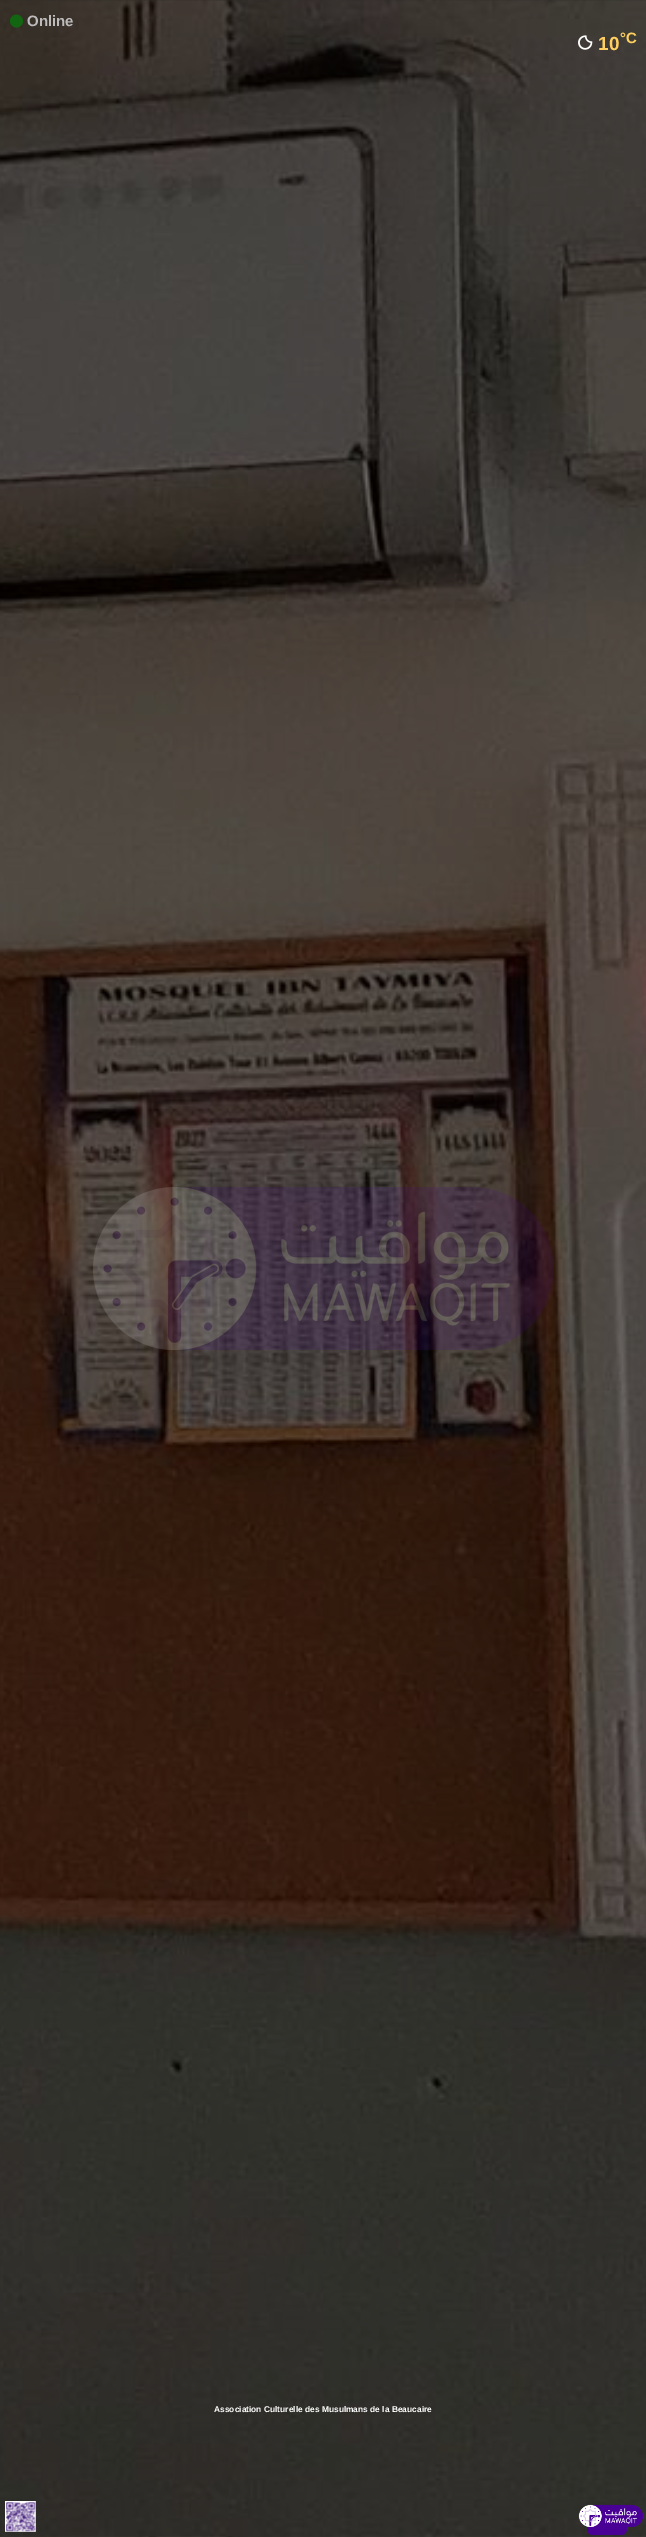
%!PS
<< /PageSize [646 2537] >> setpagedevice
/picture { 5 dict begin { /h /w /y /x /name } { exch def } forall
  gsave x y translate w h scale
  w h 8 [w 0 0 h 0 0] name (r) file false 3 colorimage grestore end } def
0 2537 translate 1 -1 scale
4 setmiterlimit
1 setgray
0 0 646 2537 rectfill
(img1.rgb) 0 0 646 2537 picture
0.071 0.4 0.067 setrgbcolor
newpath 12 16.5 moveto 18 11 27 19.5 21 25.5 curveto 15 31.5 6 22.5 12 16.5 curveto closepath fill
/LiberationSans-Bold [15 0 0 -15 0 0] selectfont
0.741 0.733 0.733 setrgbcolor
27 26 moveto (Online) show
(img2.rgb) 578 35 15 15 picture
/LiberationSans-Bold [19 0 0 -19 0 0] selectfont
1 0.816 0.373 setrgbcolor
598 50 moveto (10) show
/LiberationSans-Bold [15 0 0 -15 0 0] selectfont
620 43 moveto (°C) show
/LiberationSans-Bold [8.4 0 0 -8.4 0 0] selectfont
1 setgray
214 2412 moveto (Association Culturelle des Musulmans de la Beaucaire) show
(img3.rgb) 5 2501 31 31 picture
0.286 0 0.58 setrgbcolor
newpath 587 2525 moveto 627 2525 lineto 627 2529 lineto 627 2532.5 624.5 2535 621 2535 curveto 593 2535 lineto 589.5 2535 587 2532.5 587 2529 curveto closepath fill
(img4.rgb) 578 2504 65 23 picture
(img5.rgb) 93 1187 461 163 picture
showpage
